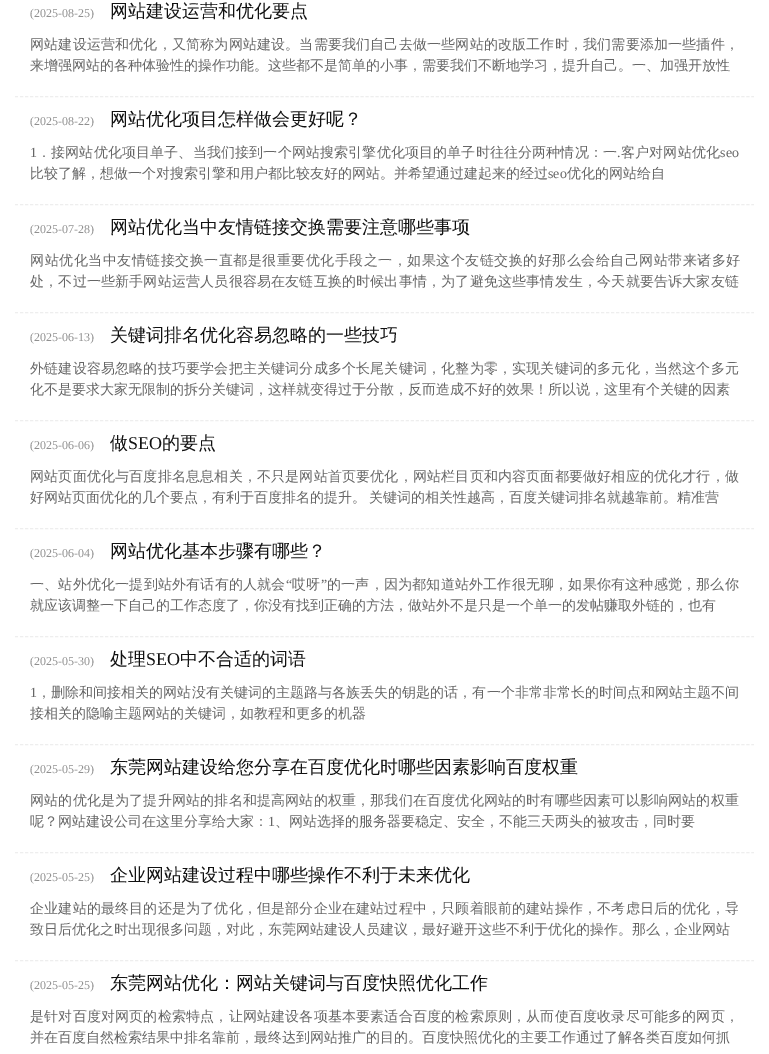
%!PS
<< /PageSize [769 1054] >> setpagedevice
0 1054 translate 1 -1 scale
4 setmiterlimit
1 setgray
0 0 769 1054 rectfill
0.933 setgray
[3 2.01] 0 setdash
newpath 15 96.5 moveto 754 96.5 lineto stroke
/LiberationSerif-Regular [12 0 0 -12 0 0] selectfont
0.565 setgray
30 17 moveto (\(2025-08-25\)) show
/WenQuanYiZenHei-Medium [18 0 0 -18 0 0] selectfont
0.067 setgray
110 17 moveto (网站建设运营和优化要点) show
/WenQuanYiZenHei-Medium [14 0 0 -14 0 0] selectfont
0.4 setgray
30 49 moveto 0.18 0 (网站建设运营和优化，又简称为网站建设。当需要我们自己去做一些网站的改版工作时，我们需要添加一些插件，) ashow
30 70 moveto (来增强网站的各种体验性的操作功能。这些都不是简单的小事，需要我们不断地学习，提升自己。一、加强开放性) show
0.933 setgray
newpath 15 204.5 moveto 754 204.5 lineto stroke
/LiberationSerif-Regular [12 0 0 -12 0 0] selectfont
0.565 setgray
30 125 moveto (\(2025-08-22\)) show
/WenQuanYiZenHei-Medium [18 0 0 -18 0 0] selectfont
0.067 setgray
110 125 moveto (网站优化项目怎样做会更好呢？) show
/LiberationSerif-Regular [14 0 0 -14 0 0] selectfont
0.4 setgray
30 157 moveto 0.15 0 (1) ashow
/WenQuanYiZenHei-Medium [14 0 0 -14 0 0] selectfont
37 157 moveto 0.15 0 (．接网站优化项目单子、当我们接到一个网站搜索引擎优化项目的单子时往往分两种情况：一) ashow
/LiberationSerif-Regular [14 0 0 -14 0 0] selectfont
617 157 moveto 0.15 0 (.) ashow
/WenQuanYiZenHei-Medium [14 0 0 -14 0 0] selectfont
621 157 moveto 0.15 0 (客户对网站优化) ashow
/LiberationSerif-Regular [14 0 0 -14 0 0] selectfont
720 157 moveto 0.15 0 (seo) ashow
/WenQuanYiZenHei-Medium [14 0 0 -14 0 0] selectfont
30 178 moveto (比较了解，想做一个对搜索引擎和用户都比较友好的网站。并希望通过建起来的经过) show
/LiberationSerif-Regular [14 0 0 -14 0 0] selectfont
548 178 moveto (seo) show
/WenQuanYiZenHei-Medium [14 0 0 -14 0 0] selectfont
567 178 moveto (优化的网站给自) show
0.933 setgray
newpath 15 312.5 moveto 754 312.5 lineto stroke
/LiberationSerif-Regular [12 0 0 -12 0 0] selectfont
0.565 setgray
30 233 moveto (\(2025-07-28\)) show
/WenQuanYiZenHei-Medium [18 0 0 -18 0 0] selectfont
0.067 setgray
110 233 moveto (网站优化当中友情链接交换需要注意哪些事项) show
/WenQuanYiZenHei-Medium [14 0 0 -14 0 0] selectfont
0.4 setgray
30 265 moveto 0.5 0 (网站优化当中友情链接交换一直都是很重要优化手段之一，如果这个友链交换的好那么会给自己网站带来诸多好) ashow
30 286 moveto 0.18 0 (处，不过一些新手网站运营人员很容易在友链互换的时候出事情，为了避免这些事情发生，今天就要告诉大家友链) ashow
0.933 setgray
newpath 15 420.5 moveto 754 420.5 lineto stroke
/LiberationSerif-Regular [12 0 0 -12 0 0] selectfont
0.565 setgray
30 341 moveto (\(2025-06-13\)) show
/WenQuanYiZenHei-Medium [18 0 0 -18 0 0] selectfont
0.067 setgray
110 341 moveto (关键词排名优化容易忽略的一些技巧) show
/WenQuanYiZenHei-Medium [14 0 0 -14 0 0] selectfont
0.4 setgray
30 373 moveto 0.18 0 (外链建设容易忽略的技巧要学会把主关键词分成多个长尾关键词，化整为零，实现关键词的多元化，当然这个多元) ashow
30 394 moveto (化不是要求大家无限制的拆分关键词，这样就变得过于分散，反而造成不好的效果！所以说，这里有个关键的因素) show
0.933 setgray
newpath 15 528.5 moveto 754 528.5 lineto stroke
/LiberationSerif-Regular [12 0 0 -12 0 0] selectfont
0.565 setgray
30 449 moveto (\(2025-06-06\)) show
/WenQuanYiZenHei-Medium [18 0 0 -18 0 0] selectfont
0.067 setgray
110 449 moveto (做) show
/LiberationSerif-Regular [18 0 0 -18 0 0] selectfont
128 449 moveto (SEO) show
/WenQuanYiZenHei-Medium [18 0 0 -18 0 0] selectfont
162 449 moveto (的要点) show
/WenQuanYiZenHei-Medium [14 0 0 -14 0 0] selectfont
0.4 setgray
30 481 moveto 0.18 0 (网站页面优化与百度排名息息相关，不只是网站首页要优化，网站栏目页和内容页面都要做好相应的优化才行，做) ashow
30 502 moveto -1 0 32 (好网站页面优化的几个要点，有利于百度排名的提升。 关键词的相关性越高，百度关键词排名就越靠前。精准营) widthshow
0.933 setgray
newpath 15 636.5 moveto 754 636.5 lineto stroke
/LiberationSerif-Regular [12 0 0 -12 0 0] selectfont
0.565 setgray
30 557 moveto (\(2025-06-04\)) show
/WenQuanYiZenHei-Medium [18 0 0 -18 0 0] selectfont
0.067 setgray
110 557 moveto (网站优化基本步骤有哪些？) show
/WenQuanYiZenHei-Medium [14 0 0 -14 0 0] selectfont
0.4 setgray
30 589 moveto 0.2 0 (一、站外优化一提到站外有话有的人就会) ashow
/LiberationSerif-Regular [14 0 0 -14 0 0] selectfont
286 589 moveto 0.2 0 (“) ashow
/WenQuanYiZenHei-Medium [14 0 0 -14 0 0] selectfont
292 589 moveto 0.2 0 (哎呀) ashow
/LiberationSerif-Regular [14 0 0 -14 0 0] selectfont
321 589 moveto 0.2 0 (”) ashow
/WenQuanYiZenHei-Medium [14 0 0 -14 0 0] selectfont
327 589 moveto 0.2 0 (的一声，因为都知道站外工作很无聊，如果你有这种感觉，那么你) ashow
30 610 moveto (就应该调整一下自己的工作态度了，你没有找到正确的方法，做站外不是只是一个单一的发帖赚取外链的，也有) show
0.933 setgray
newpath 15 744.5 moveto 754 744.5 lineto stroke
/LiberationSerif-Regular [12 0 0 -12 0 0] selectfont
0.565 setgray
30 665 moveto (\(2025-05-30\)) show
/WenQuanYiZenHei-Medium [18 0 0 -18 0 0] selectfont
0.067 setgray
110 665 moveto (处理) show
/LiberationSerif-Regular [18 0 0 -18 0 0] selectfont
146 665 moveto (SEO) show
/WenQuanYiZenHei-Medium [18 0 0 -18 0 0] selectfont
180 665 moveto (中不合适的词语) show
/LiberationSerif-Regular [14 0 0 -14 0 0] selectfont
0.4 setgray
30 697 moveto 0.05 0 (1) ashow
/WenQuanYiZenHei-Medium [14 0 0 -14 0 0] selectfont
37 697 moveto 0.05 0 (，删除和间接相关的网站没有关键词的主题路与各族丢失的钥匙的话，有一个非常非常长的时间点和网站主题不间) ashow
30 718 moveto (接相关的隐喻主题网站的关键词，如教程和更多的机器) show
0.933 setgray
newpath 15 852.5 moveto 754 852.5 lineto stroke
/LiberationSerif-Regular [12 0 0 -12 0 0] selectfont
0.565 setgray
30 773 moveto (\(2025-05-29\)) show
/WenQuanYiZenHei-Medium [18 0 0 -18 0 0] selectfont
0.067 setgray
110 773 moveto (东莞网站建设给您分享在百度优化时哪些因素影响百度权重) show
/WenQuanYiZenHei-Medium [14 0 0 -14 0 0] selectfont
0.4 setgray
30 805 moveto 0.18 0 (网站的优化是为了提升网站的排名和提高网站的权重，那我们在百度优化网站的时有哪些因素可以影响网站的权重) ashow
30 826 moveto (呢？网站建设公司在这里分享给大家：) show
/LiberationSerif-Regular [14 0 0 -14 0 0] selectfont
268 826 moveto (1) show
/WenQuanYiZenHei-Medium [14 0 0 -14 0 0] selectfont
275 826 moveto (、网站选择的服务器要稳定、安全，不能三天两头的被攻击，同时要) show
0.933 setgray
newpath 15 960.5 moveto 754 960.5 lineto stroke
/LiberationSerif-Regular [12 0 0 -12 0 0] selectfont
0.565 setgray
30 881 moveto (\(2025-05-25\)) show
/WenQuanYiZenHei-Medium [18 0 0 -18 0 0] selectfont
0.067 setgray
110 881 moveto (企业网站建设过程中哪些操作不利于未来优化) show
/WenQuanYiZenHei-Medium [14 0 0 -14 0 0] selectfont
0.4 setgray
30 913 moveto 0.18 0 (企业建站的最终目的还是为了优化，但是部分企业在建站过程中，只顾着眼前的建站操作，不考虑日后的优化，导) ashow
30 934 moveto (致日后优化之时出现很多问题，对此，东莞网站建设人员建议，最好避开这些不利于优化的操作。那么，企业网站) show
/LiberationSerif-Regular [12 0 0 -12 0 0] selectfont
0.565 setgray
30 989 moveto (\(2025-05-25\)) show
/WenQuanYiZenHei-Medium [18 0 0 -18 0 0] selectfont
0.067 setgray
110 989 moveto (东莞网站优化：网站关键词与百度快照优化工作) show
/WenQuanYiZenHei-Medium [14 0 0 -14 0 0] selectfont
0.4 setgray
30 1021 moveto 0.18 0 (是针对百度对网页的检索特点，让网站建设各项基本要素适合百度的检索原则，从而使百度收录尽可能多的网页，) ashow
30 1042 moveto (并在百度自然检索结果中排名靠前，最终达到网站推广的目的。百度快照优化的主要工作通过了解各类百度如何抓) show
showpage
